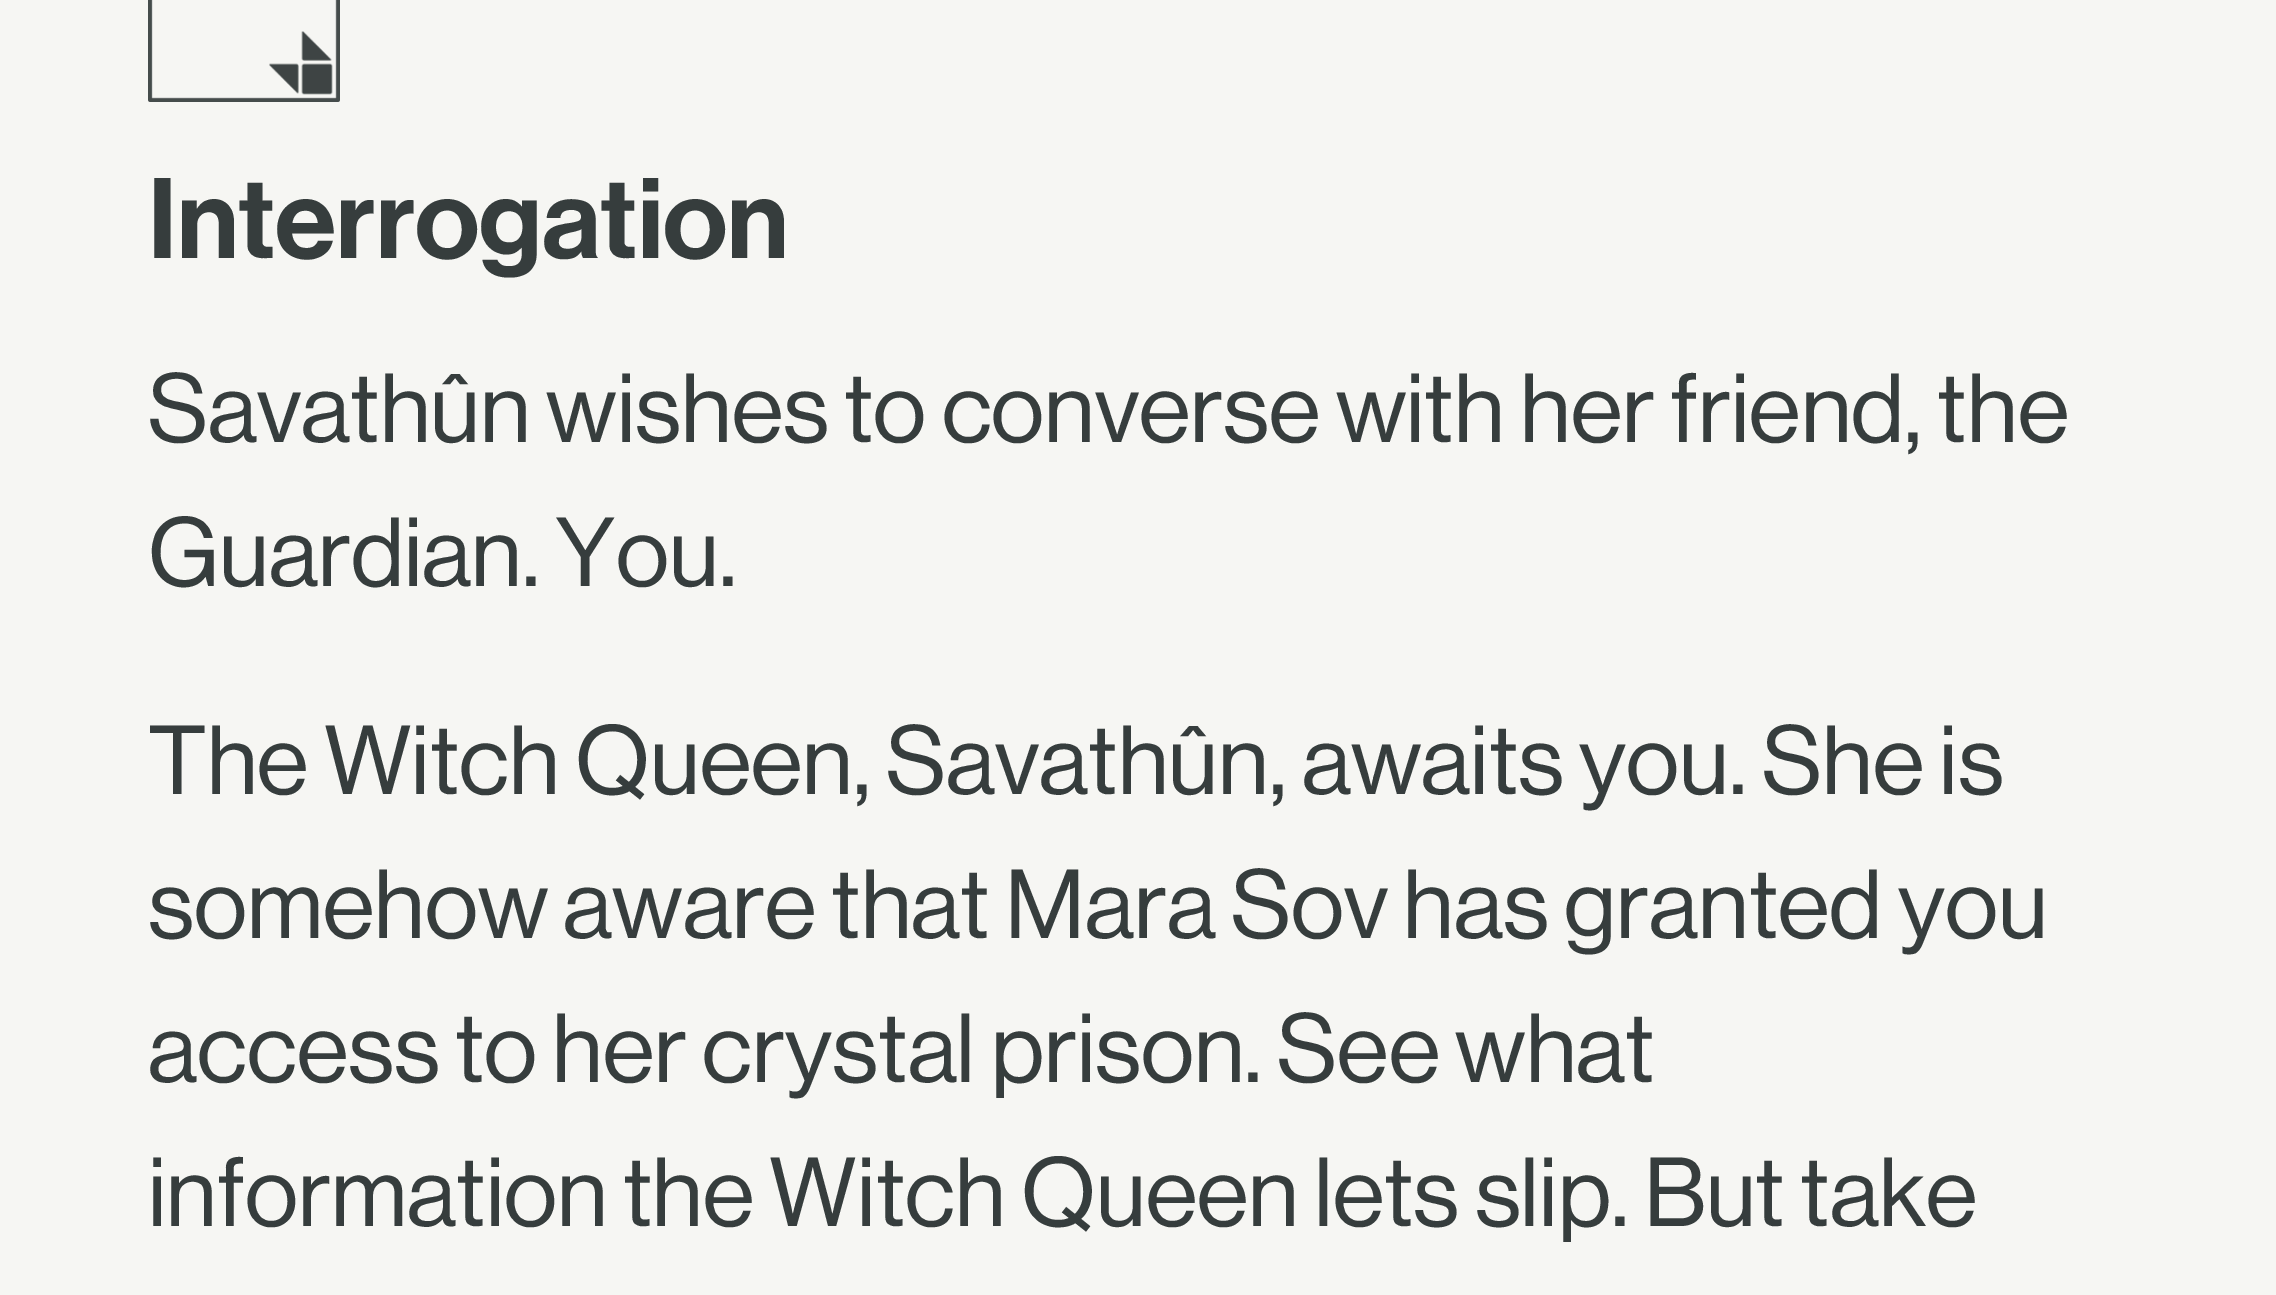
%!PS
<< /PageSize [2276 1295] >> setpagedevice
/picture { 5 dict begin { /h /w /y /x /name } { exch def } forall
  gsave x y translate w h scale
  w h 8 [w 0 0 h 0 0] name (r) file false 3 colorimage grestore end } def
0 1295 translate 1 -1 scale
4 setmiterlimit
0.965 0.965 0.953 setrgbcolor
0 0 2276 1295 rectfill
(img1.rgb) 148 0 192 102 picture
/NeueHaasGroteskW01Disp-Medium [112 0 0 -112 0 0] selectfont
0.212 0.239 0.239 setrgbcolor
148 258 moveto (Interrogation) show
/NeueHaasGroteskW01Disp-Regular [96 0 0 -96 0 0] selectfont
148 442 moveto (Savathûn wishes to converse with her friend, the) show
148 586 moveto (Guardian. You.) show
148 794 moveto (The Witch Queen, Savathûn, awaits you. She is) show
148 938 moveto (somehow aware that Mara Sov has granted you) show
148 1082 moveto (access to her crystal prison. See what) show
148 1226 moveto (information the Witch Queen lets slip. But take) show
showpage
